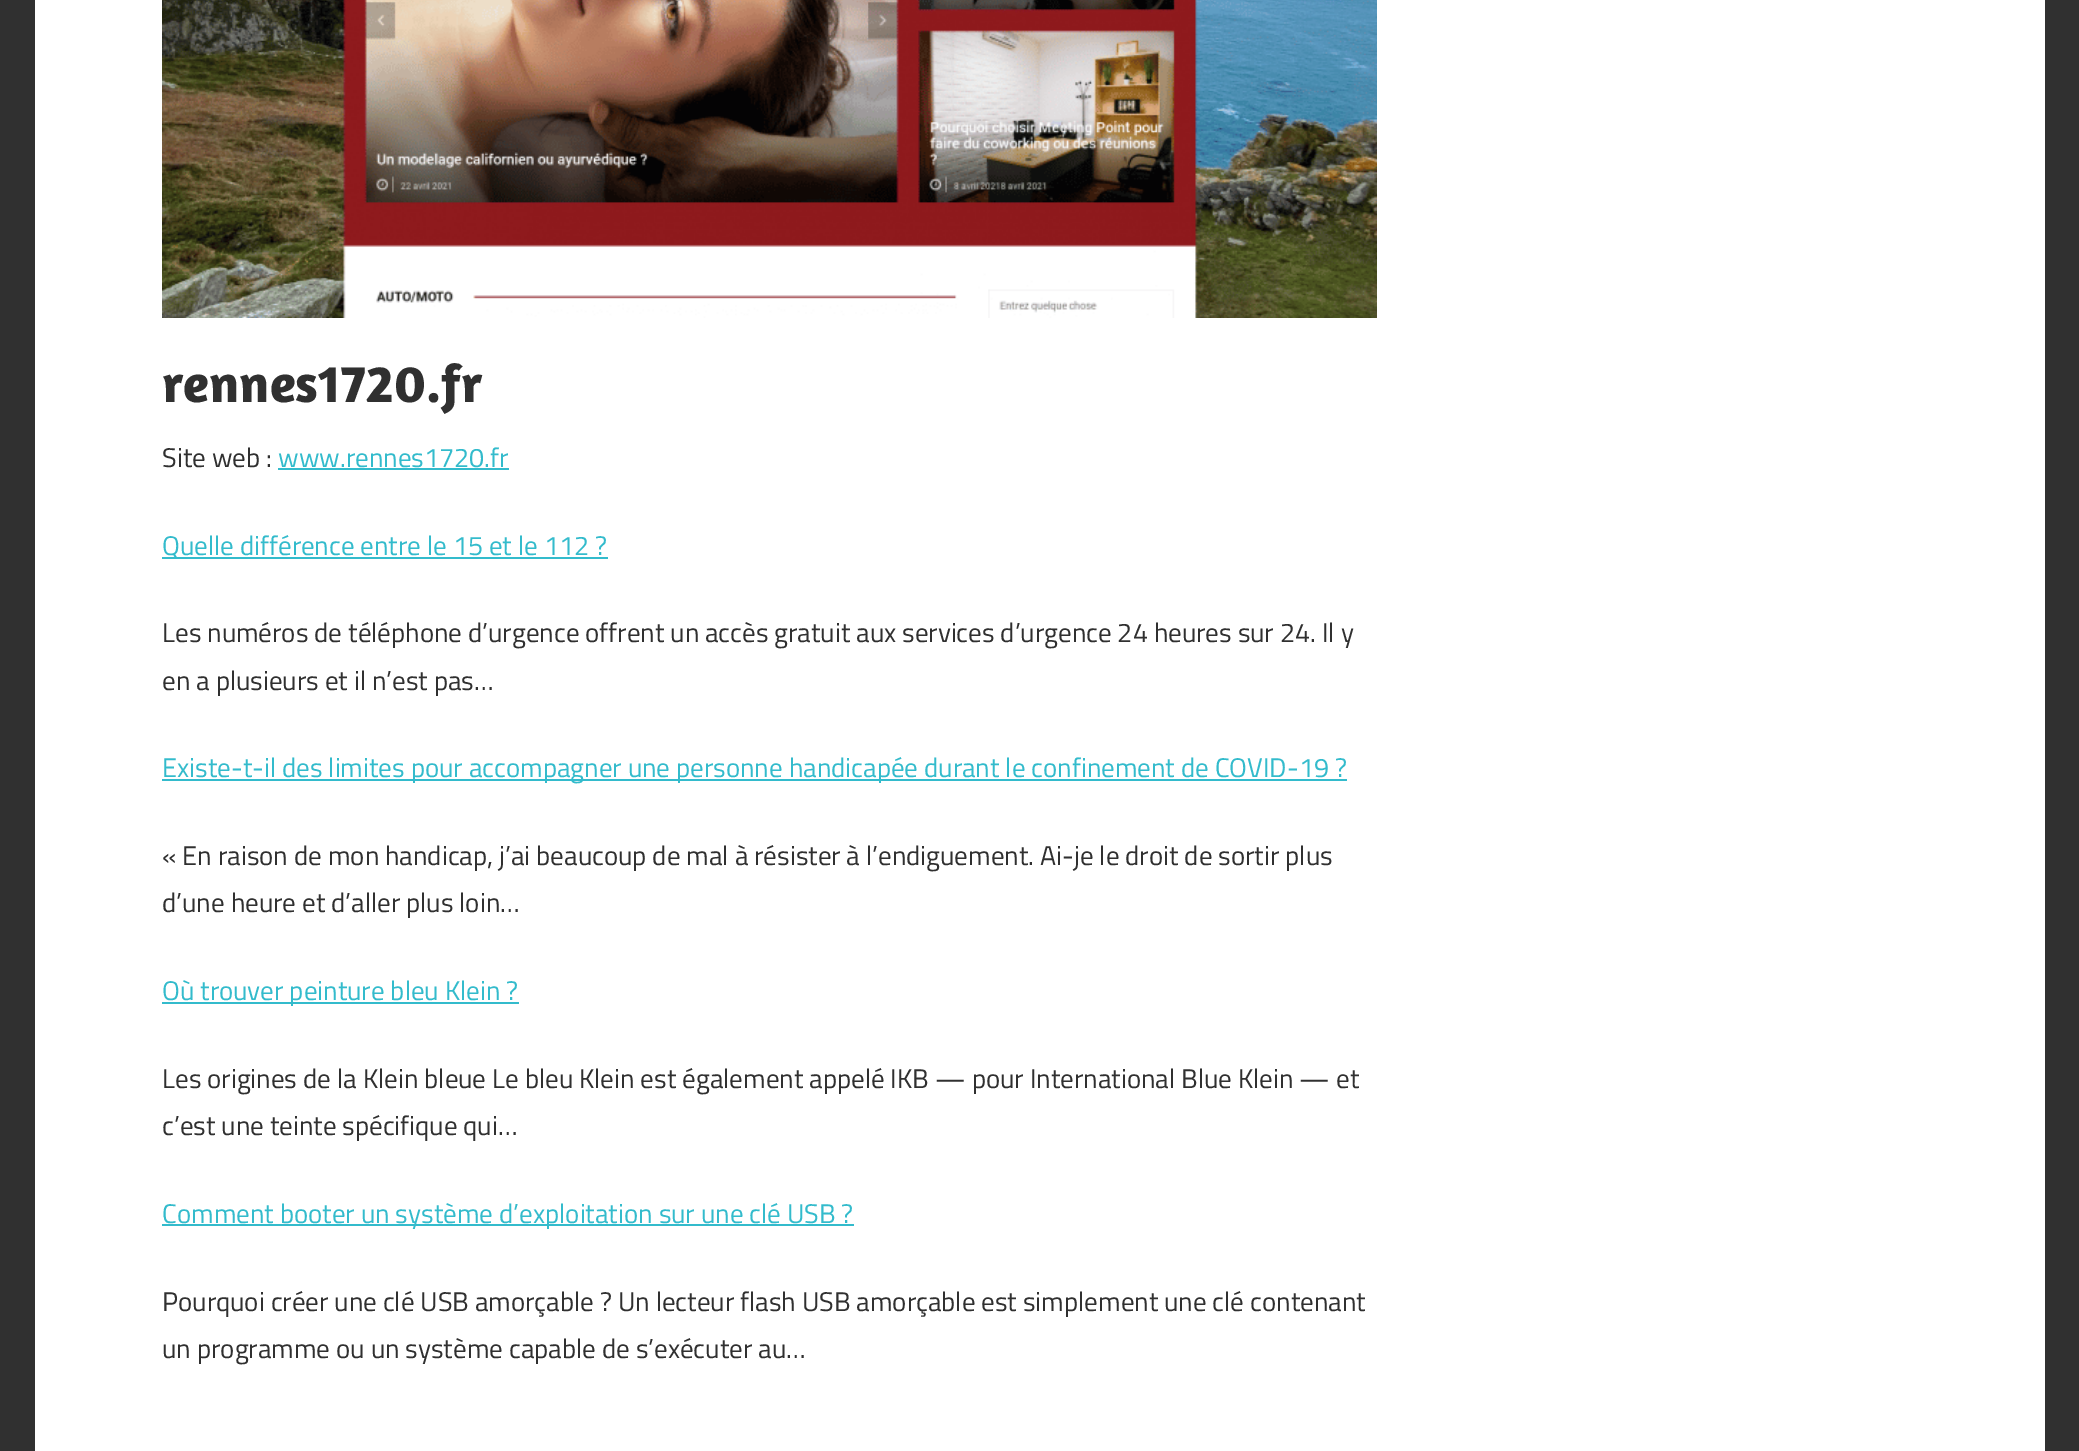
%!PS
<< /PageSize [2079 1451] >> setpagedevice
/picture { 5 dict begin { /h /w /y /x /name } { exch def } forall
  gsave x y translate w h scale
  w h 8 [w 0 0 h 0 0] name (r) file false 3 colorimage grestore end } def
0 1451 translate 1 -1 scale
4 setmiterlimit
0.188 setgray
0 0 2079 1451 rectfill
1 setgray
35 0 2010 1451 rectfill
(img1.rgb) 162 0 1215 318 picture
/Amaranth-Bold [54 0 0 -54 0 0] selectfont
0.188 setgray
162 402 moveto (rennes1720.fr) show
/TitilliumWeb-Regular [27 0 0 -27 0 0] selectfont
162 467 moveto (Site web :) show
0.2 0.733 0.8 setrgbcolor
278 467 moveto (www.rennes1720.fr) show
278 468 231 2 rectfill
162 557 446 2 rectfill
162 555 moveto (Quelle différence entre le 15 et le 112 ?) show
0.188 setgray
162 642 moveto (Les numéros de téléphone d’urgence offrent un accès gratuit aux services d’urgence 24 heures sur 24. Il y) show
162 690 moveto (en a plusieurs et il n’est pas…) show
0.2 0.733 0.8 setrgbcolor
162 779 1185 2 rectfill
162 777 moveto (Existe-t-il des limites pour accompagner une personne handicapée durant le confinement de COVID-19 ?) show
0.188 setgray
162 865 moveto (« En raison de mon handicap, j’ai beaucoup de mal à résister à l’endiguement. Ai-je le droit de sortir plus) show
162 912 moveto (d’une heure et d’aller plus loin…) show
0.2 0.733 0.8 setrgbcolor
162 1002 357 2 rectfill
162 1000 moveto (Où trouver peinture bleu Klein ?) show
0.188 setgray
162 1088 moveto (Les origines de la Klein bleue Le bleu Klein est également appelé IKB — pour International Blue Klein — et) show
162 1135 moveto (c’est une teinte spécifique qui…) show
0.2 0.733 0.8 setrgbcolor
162 1224 692 2 rectfill
162 1223 moveto (Comment booter un système d’exploitation sur une clé USB ?) show
0.188 setgray
162 1311 moveto (Pourquoi créer une clé USB amorçable ? Un lecteur flash USB amorçable est simplement une clé contenant) show
162 1358 moveto (un programme ou un système capable de s’exécuter au…) show
showpage
